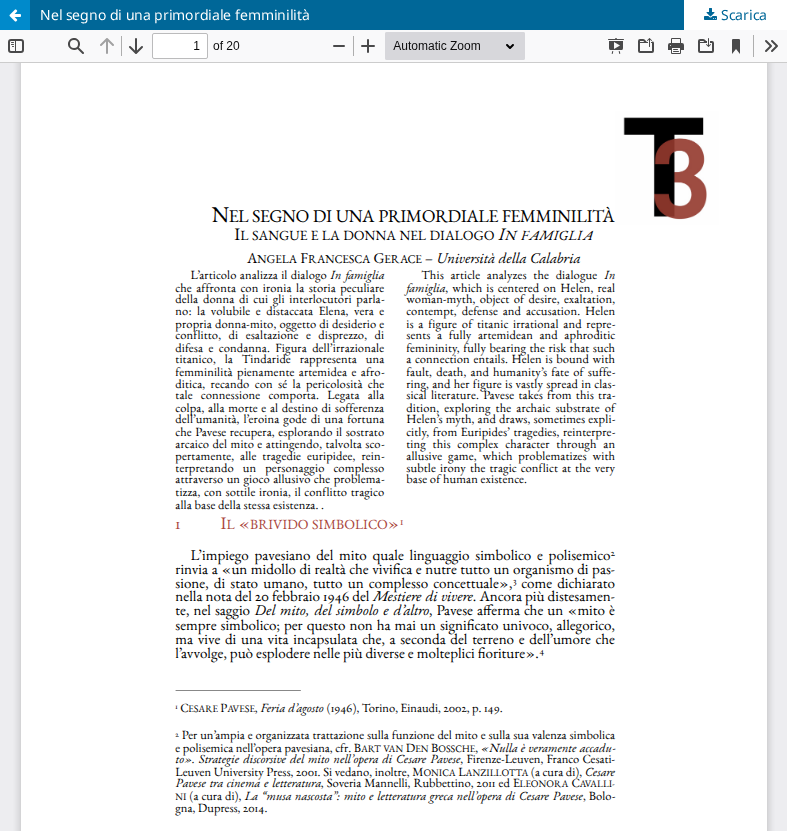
%!PS
<< /PageSize [787 831] >> setpagedevice
/picture { 5 dict begin { /h /w /y /x /name } { exch def } forall
  gsave x y translate w h scale
  w h 8 [w 0 0 h 0 0] name (r) file false 3 colorimage grestore end } def
0 831 translate 1 -1 scale
4 setmiterlimit
1 setgray
0 0 787 831 rectfill
0 0.404 0.596 setrgbcolor
30 0 654 30 rectfill
0 0.541 0.796 setrgbcolor
0 0 30 30 rectfill
(img1.rgb) 9 9 12 13 picture
/NotoSans-Regular [14 0 0 -14 0 0] selectfont
1 setgray
40 20 moveto (Nel segno di una primordiale femminilità) show
(img2.rgb) 704 8 13 12 picture
0 0.404 0.596 setrgbcolor
721 20 moveto (Scarica) show
(img3.rgb) 0 30 787 801 picture
showpage
